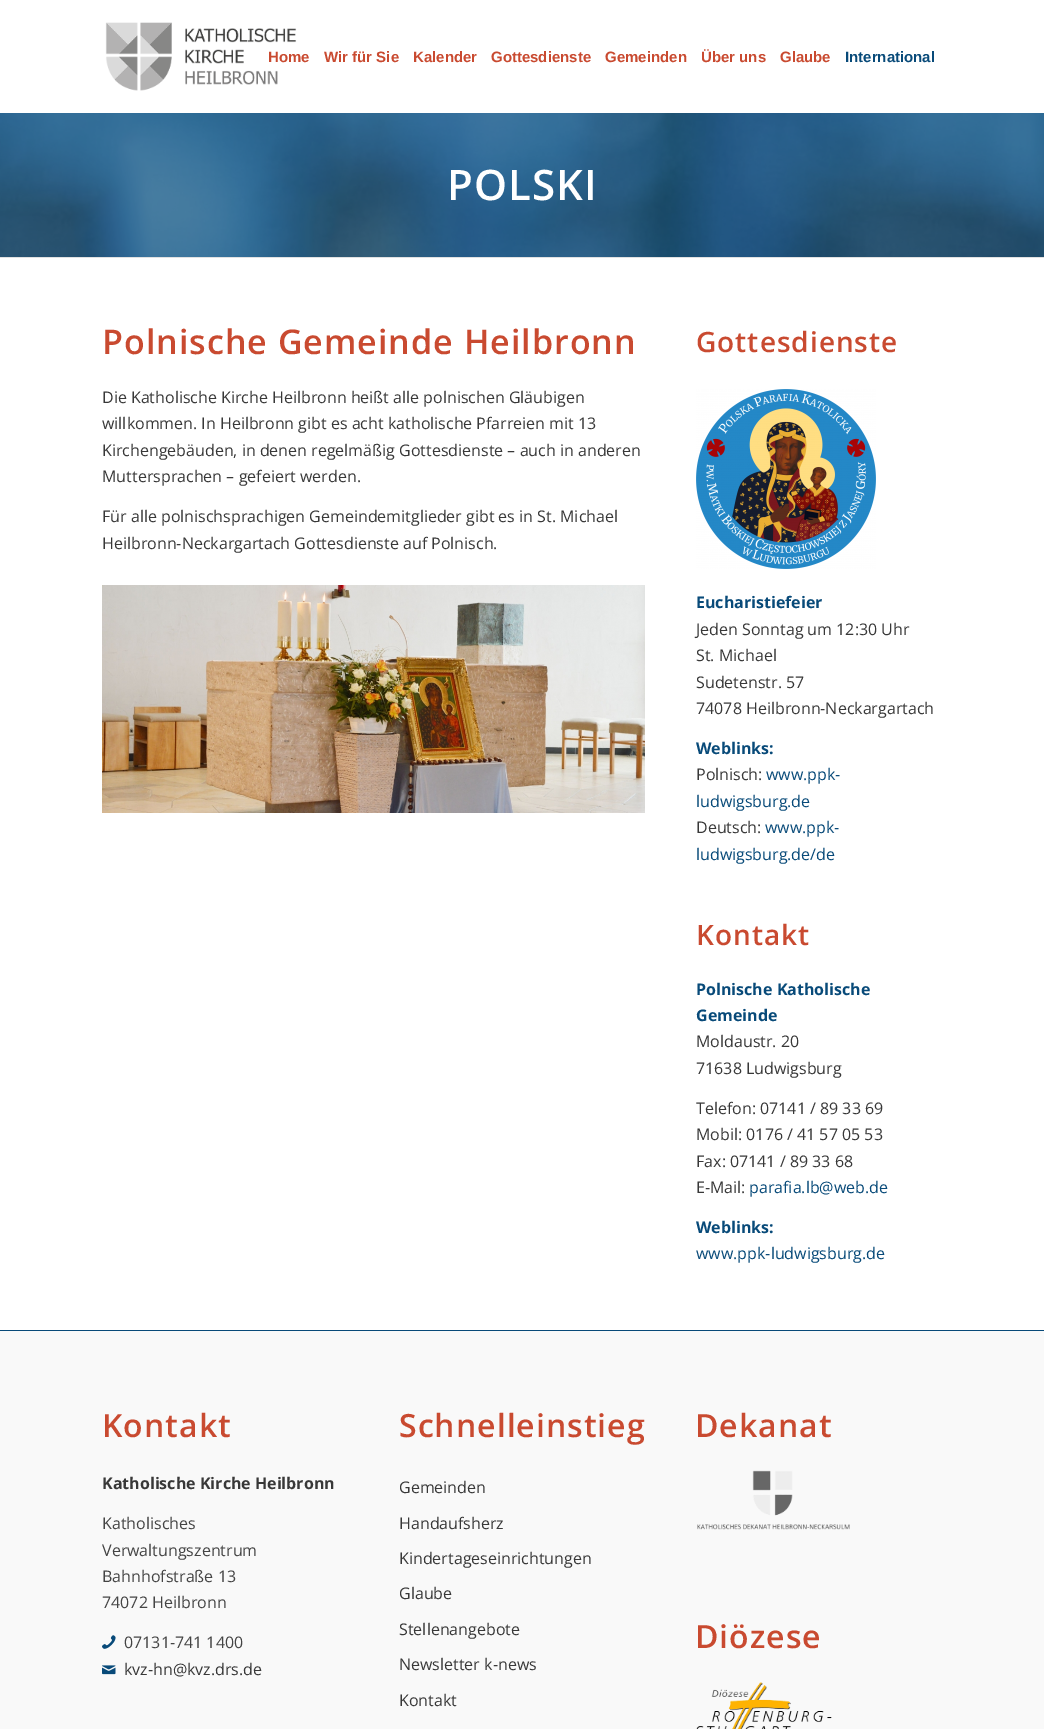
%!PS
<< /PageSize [1044 1729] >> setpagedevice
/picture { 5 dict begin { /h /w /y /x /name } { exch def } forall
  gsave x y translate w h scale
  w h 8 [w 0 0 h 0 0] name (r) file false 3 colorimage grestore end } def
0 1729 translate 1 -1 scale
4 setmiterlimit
1 setgray
0 0 1044 1729 rectfill
(img1.rgb) 105 22 192 69 picture
/LiberationSans-Bold [15 0 0 -15 0 0] selectfont
0.788 0.29 0.188 setrgbcolor
268 62 moveto (Home) show
324 62 moveto (Wir für Sie) show
413 62 moveto (Kalender) show
491 62 moveto (Gottesdienste) show
605 62 moveto (Gemeinden) show
701 62 moveto (Über uns) show
780 62 moveto (Glaube) show
0.031 0.29 0.475 setrgbcolor
845 62 moveto (International) show
(img2.rgb) 0 113 1044 144 picture
/OpenSans-SemiBold [42 0 0 -42 0 0] selectfont
1 setgray
447 200 moveto 1 0 (POLSKI) ashow
0.882 setgray
0 257 1044 1 rectfill
/OpenSans-SemiBold [34 0 0 -34 0 0] selectfont
0.788 0.29 0.188 setrgbcolor
102 354 moveto 1 0 (Polnische Gemeinde Heilbronn) ashow
/OpenSans-Regular [16 0 0 -16 0 0] selectfont
0.22 setgray
102 403 moveto (Die Katholische Kirche Heilbronn heißt alle polnischen Gläubigen) show
102 429 moveto (willkommen. In Heilbronn gibt es acht katholische Pfarreien mit 13) show
102 456 moveto (Kirchengebäuden, in denen regelmäßig Gottesdienste – auch in anderen) show
102 482 moveto (Muttersprachen – gefeiert werden.) show
102 522 moveto (Für alle polnischsprachigen Gemeindemitglieder gibt es in St. Michael) show
102 549 moveto (Heilbronn-Neckargartach Gottesdienste auf Polnisch.) show
(img3.rgb) 102 585 543 228 picture
/OpenSans-SemiBold [28 0 0 -28 0 0] selectfont
0.788 0.29 0.188 setrgbcolor
696 352 moveto 1 0 (Gottesdienste) ashow
(img4.rgb) 696 389 180 180 picture
/OpenSans-Bold [16 0 0 -16 0 0] selectfont
0.031 0.29 0.475 setrgbcolor
696 608 moveto (Eucharistiefeier) show
/OpenSans-Regular [16 0 0 -16 0 0] selectfont
0.22 setgray
696 635 moveto (Jeden Sonntag um 12:30 Uhr) show
696 661 moveto (St. Michael) show
696 688 moveto (Sudetenstr. 57) show
696 714 moveto (74078 Heilbronn-Neckargartach) show
/OpenSans-Bold [16 0 0 -16 0 0] selectfont
0.031 0.29 0.475 setrgbcolor
696 754 moveto (Weblinks:) show
/OpenSans-Regular [16 0 0 -16 0 0] selectfont
0.22 setgray
696 780 moveto (Polnisch:) show
0.031 0.29 0.475 setrgbcolor
766 780 moveto (www.ppk-) show
696 807 moveto (ludwigsburg.de) show
0.22 setgray
696 833 moveto (Deutsch:) show
0.031 0.29 0.475 setrgbcolor
765 833 moveto (www.ppk-) show
696 860 moveto (ludwigsburg.de/de) show
/OpenSans-SemiBold [28 0 0 -28 0 0] selectfont
0.788 0.29 0.188 setrgbcolor
696 945 moveto 1 0 (Kontakt) ashow
/OpenSans-Bold [16 0 0 -16 0 0] selectfont
0.031 0.29 0.475 setrgbcolor
696 995 moveto (Polnische Katholische) show
696 1021 moveto (Gemeinde) show
/OpenSans-Regular [16 0 0 -16 0 0] selectfont
0.22 setgray
696 1047 moveto (Moldaustr. 20) show
696 1074 moveto (71638 Ludwigsburg) show
696 1114 moveto (Telefon: 07141 / 89 33 69) show
696 1140 moveto (Mobil: 0176 / 41 57 05 53) show
696 1167 moveto (Fax: 07141 / 89 33 68) show
696 1193 moveto (E-Mail:) show
0.031 0.29 0.475 setrgbcolor
749 1193 moveto (parafia.lb@web.de) show
/OpenSans-Bold [16 0 0 -16 0 0] selectfont
696 1233 moveto (Weblinks:) show
/OpenSans-Regular [16 0 0 -16 0 0] selectfont
696 1259 moveto (www.ppk-ludwigsburg.de) show
0.976 setgray
0 1331 1044 398 rectfill
0.031 0.29 0.475 setrgbcolor
0 1330 1044 1 rectfill
/OpenSans-SemiBold [32 0 0 -32 0 0] selectfont
0.788 0.29 0.188 setrgbcolor
102 1437 moveto 1 0 (Kontakt) ashow
/OpenSans-Bold [16 0 0 -16 0 0] selectfont
0.22 setgray
102 1489 moveto (Katholische Kirche Heilbronn) show
/OpenSans-Regular [16 0 0 -16 0 0] selectfont
0.267 setgray
102 1529 moveto (Katholisches) show
102 1556 moveto (Verwaltungszentrum) show
102 1582 moveto (Bahnhofstraße 13) show
102 1608 moveto (74072 Heilbronn) show
(img5.rgb) 102 1635 14 14 picture
124 1648 moveto (07131-741 1400) show
(img6.rgb) 102 1665 14 10 picture
0.22 setgray
124 1675 moveto (kvz-hn@kvz.drs.de) show
/OpenSans-SemiBold [32 0 0 -32 0 0] selectfont
0.788 0.29 0.188 setrgbcolor
399 1437 moveto 1 0 (Schnelleinstieg) ashow
/OpenSans-Regular [16 0 0 -16 0 0] selectfont
0.22 setgray
399 1493 moveto (Gemeinden) show
399 1529 moveto (Handaufsherz) show
399 1564 moveto (Kindertageseinrichtungen) show
399 1599 moveto (Glaube) show
399 1635 moveto (Stellenangebote) show
399 1670 moveto (Newsletter k-news) show
399 1706 moveto (Kontakt) show
/OpenSans-SemiBold [32 0 0 -32 0 0] selectfont
0.788 0.29 0.188 setrgbcolor
695 1437 moveto 1 0 (Dekanat) ashow
(img7.rgb) 697 1470 153 60 picture
695 1648 moveto 1 0 (Diözese) ashow
(img8.rgb) 696 1682 136 47 picture
showpage
